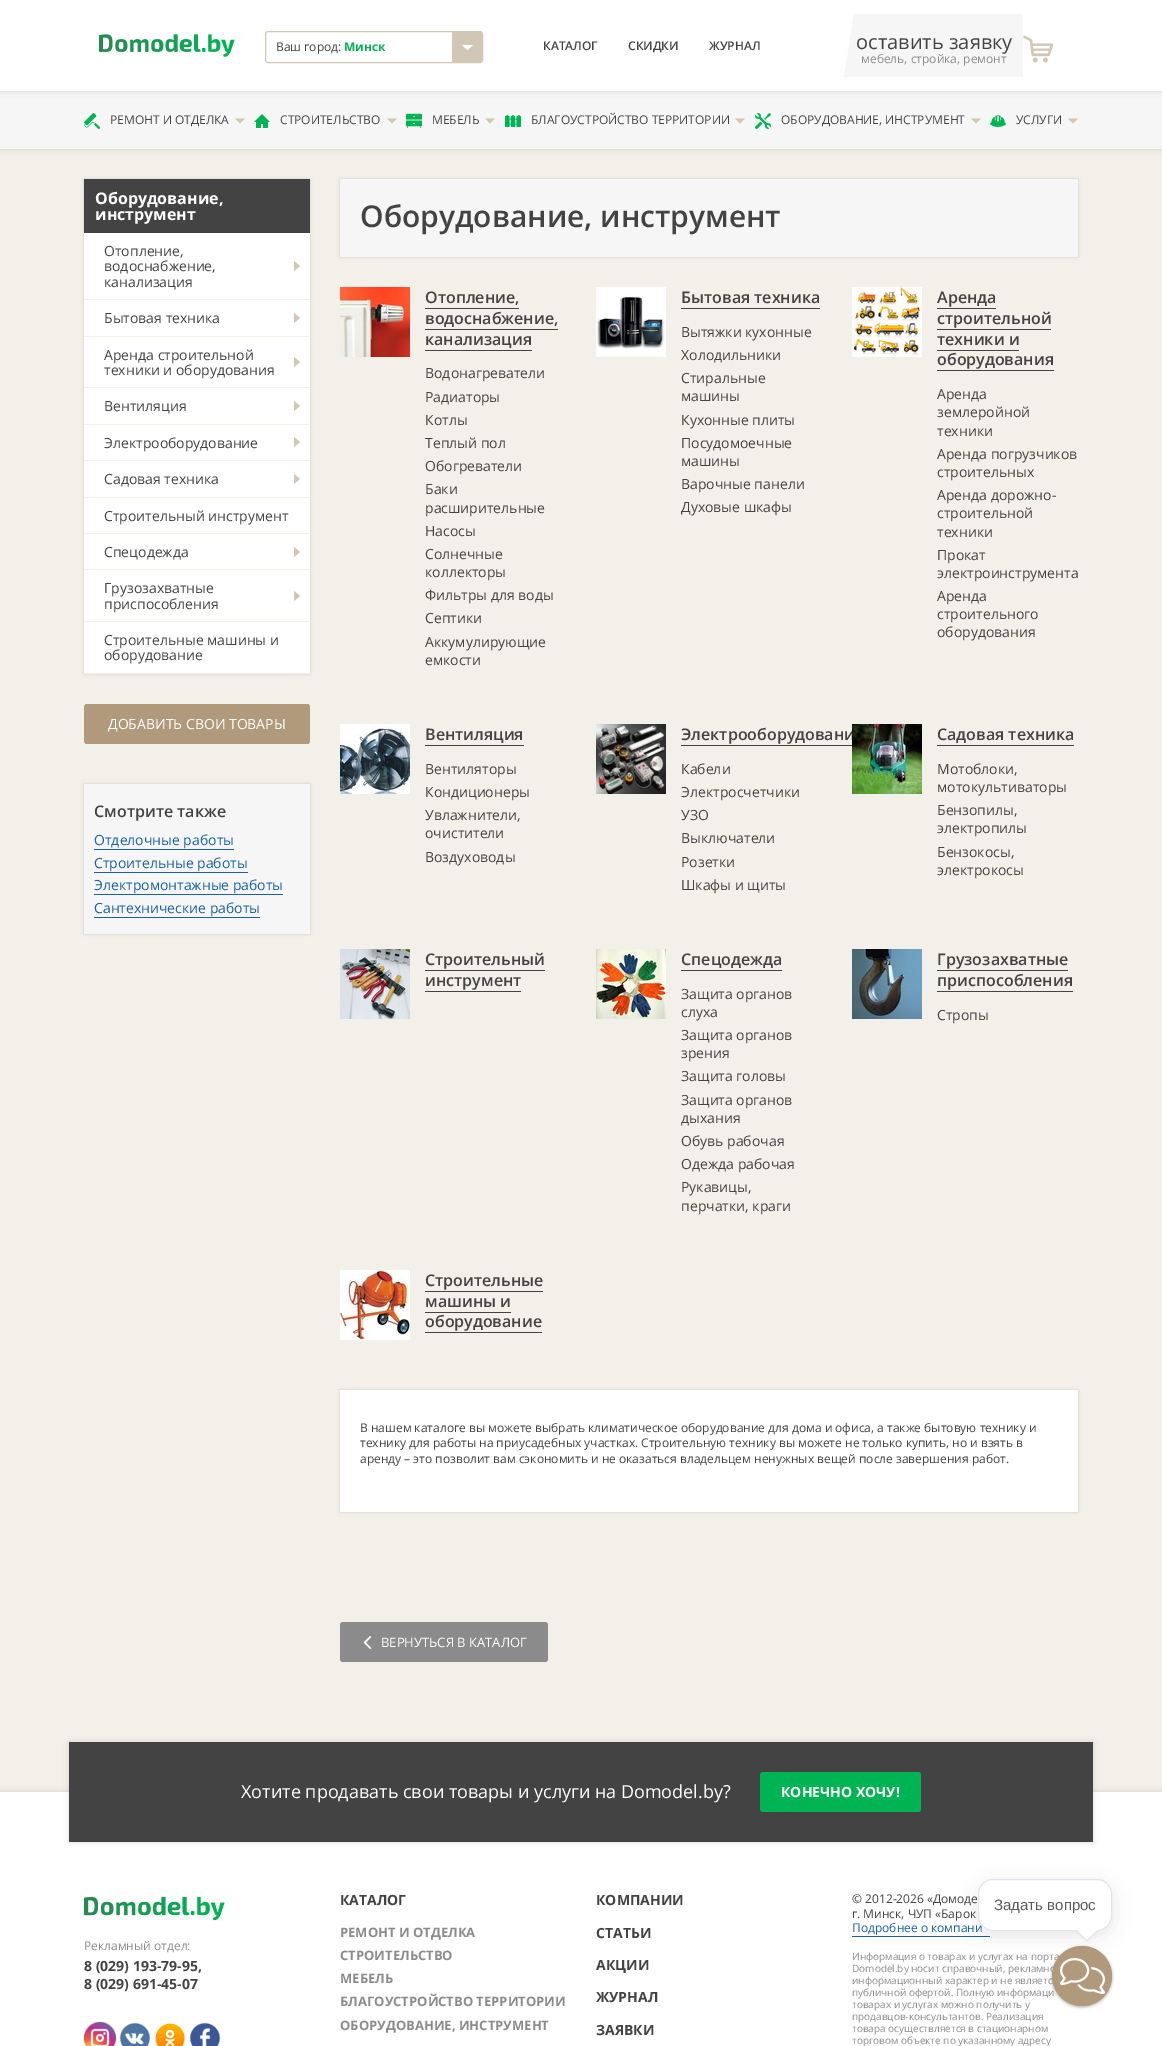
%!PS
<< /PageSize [1162 2046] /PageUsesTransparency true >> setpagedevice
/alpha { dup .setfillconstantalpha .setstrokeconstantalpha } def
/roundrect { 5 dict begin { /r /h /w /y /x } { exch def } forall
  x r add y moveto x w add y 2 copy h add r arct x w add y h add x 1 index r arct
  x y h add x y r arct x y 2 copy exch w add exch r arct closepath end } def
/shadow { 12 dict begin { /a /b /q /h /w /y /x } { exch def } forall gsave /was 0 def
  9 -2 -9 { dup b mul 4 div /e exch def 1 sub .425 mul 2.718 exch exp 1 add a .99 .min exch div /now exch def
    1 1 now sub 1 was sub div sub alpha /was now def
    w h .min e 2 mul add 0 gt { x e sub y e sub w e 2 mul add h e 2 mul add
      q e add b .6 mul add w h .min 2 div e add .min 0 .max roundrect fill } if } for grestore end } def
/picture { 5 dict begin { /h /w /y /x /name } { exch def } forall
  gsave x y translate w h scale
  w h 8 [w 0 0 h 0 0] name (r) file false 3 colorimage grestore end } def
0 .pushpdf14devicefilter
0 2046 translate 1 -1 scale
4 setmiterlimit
0.953 0.941 0.914 setrgbcolor
0 0 1162 2046 rectfill
0.263 setgray
0 91 1162 58 0 3 0.2 shadow
0.965 setgray
0 91 1162 58 rectfill
0.263 setgray
0 0 1162 91 0 3 0.2 shadow
1 setgray
0 0 1162 91 rectfill
(img1.rgb) 99 34 136 23 picture
0.824 0.78 0.71 setrgbcolor
265.5 31.5 217 31 2.5 roundrect stroke
/OpenSans-Regular [12 0 0 -12 0 0] selectfont
0.263 setgray
276 51 moveto (Ваш город:) show
/OpenSans-Bold [12 0 0 -12 0 0] selectfont
0 0.706 0.325 setrgbcolor
344 51 moveto (Минск) show
0.824 0.78 0.71 setrgbcolor
452 32 30 30 rectfill
1 setgray
newpath 473 45 moveto 467.5 50 lineto 462 45 lineto closepath fill
/OpenSans-SemiBold [12 0 0 -12 0 0] selectfont
0.263 setgray
543 50 moveto (КАТАЛОГ) show
628 50 moveto (СКИДКИ) show
709 50 moveto (ЖУРНАЛ) show
gsave
844 14 179 63 rectclip
0.965 setgray
newpath 854 14 moveto 1039 14 lineto 1029 77 lineto 844 77 lineto closepath fill
grestore
/OpenSans-Regular [20 0 0 -20 0 0] selectfont
856 49 moveto (оставить заявку) show
/OpenSans-Regular [12 0 0 -12 0 0] selectfont
0.545 setgray
861 63 moveto (мебель, стройка, ремонт) show
(img2.rgb) 1023 35 31 28 picture
(img3.rgb) 84 113 16 16 picture
0.263 setgray
110 124 moveto (РЕМОНТ И ОТДЕЛКА) show
0.824 0.78 0.71 setrgbcolor
newpath 245 118.5 moveto 240 123.5 lineto 235 118.5 lineto closepath fill
(img4.rgb) 254 114 16 14 picture
0.263 setgray
280 124 moveto (СТРОИТЕЛЬСТВО) show
0.824 0.78 0.71 setrgbcolor
newpath 397 118.5 moveto 392 123.5 lineto 387 118.5 lineto closepath fill
(img5.rgb) 406 113 16 16 picture
0.263 setgray
432 124 moveto (МЕБЕЛЬ) show
0.824 0.78 0.71 setrgbcolor
newpath 495 118.5 moveto 490 123.5 lineto 485 118.5 lineto closepath fill
(img6.rgb) 505 115 16 12 picture
0.263 setgray
531 124 moveto (БЛАГОУСТРОЙСТВО ТЕРРИТОРИИ) show
0.824 0.78 0.71 setrgbcolor
newpath 745 118.5 moveto 740 123.5 lineto 735 118.5 lineto closepath fill
(img7.rgb) 755 113 16 16 picture
0.263 setgray
781 124 moveto (ОБОРУДОВАНИЕ, ИНСТРУМЕНТ) show
0.824 0.78 0.71 setrgbcolor
newpath 981 118.5 moveto 976 123.5 lineto 971 118.5 lineto closepath fill
(img8.rgb) 990 115 16 12 picture
0.263 setgray
1016 124 moveto (УСЛУГИ) show
0.824 0.78 0.71 setrgbcolor
newpath 1078 118.5 moveto 1073 123.5 lineto 1068 118.5 lineto closepath fill
0.263 setgray
84 179 226 495 0 1.5 0.2 shadow
1 setgray
84 233 226 440 rectfill
0.263 setgray
84 179 226 54 rectfill
/OpenSans-Bold [16 0 0 -16 0 0] selectfont
1 setgray
95 204 moveto (Оборудование,) show
95 220 moveto (инструмент) show
0.953 0.941 0.914 setrgbcolor
84 299 226 1 rectfill
/OpenSans-Regular [14 0 0 -14 0 0] selectfont
0.263 setgray
104 256 moveto (Отопление,) show
104 271 moveto (водоснабжение,) show
0.824 0.78 0.71 setrgbcolor
newpath 294 271 moveto 294 261 lineto 300 266 lineto closepath fill
0.263 setgray
104 287 moveto (канализация) show
0.953 0.941 0.914 setrgbcolor
84 336 226 1 rectfill
0.263 setgray
104 323 moveto (Бытовая техника) show
0.824 0.78 0.71 setrgbcolor
newpath 294 323 moveto 294 313 lineto 300 318 lineto closepath fill
0.953 0.941 0.914 setrgbcolor
84 387 226 1 rectfill
0.263 setgray
104 360 moveto (Аренда строительной) show
0.824 0.78 0.71 setrgbcolor
newpath 294 367 moveto 294 357 lineto 300 362 lineto closepath fill
0.263 setgray
104 375 moveto (техники и оборудования) show
0.953 0.941 0.914 setrgbcolor
84 424 226 1 rectfill
0.263 setgray
104 411 moveto (Вентиляция) show
0.824 0.78 0.71 setrgbcolor
newpath 294 411 moveto 294 401 lineto 300 406 lineto closepath fill
0.953 0.941 0.914 setrgbcolor
84 460 226 1 rectfill
0.263 setgray
104 448 moveto (Электрооборудование) show
0.824 0.78 0.71 setrgbcolor
newpath 294 447 moveto 294 437 lineto 300 442 lineto closepath fill
0.953 0.941 0.914 setrgbcolor
84 497 226 1 rectfill
0.263 setgray
104 484 moveto (Садовая техника) show
0.824 0.78 0.71 setrgbcolor
newpath 294 484 moveto 294 474 lineto 300 479 lineto closepath fill
0.953 0.941 0.914 setrgbcolor
84 533 226 1 rectfill
0.263 setgray
104 521 moveto (Строительный инструмент) show
0.953 0.941 0.914 setrgbcolor
84 569 226 1 rectfill
0.263 setgray
104 557 moveto (Спецодежда) show
0.824 0.78 0.71 setrgbcolor
newpath 294 557 moveto 294 547 lineto 300 552 lineto closepath fill
0.953 0.941 0.914 setrgbcolor
84 621 226 1 rectfill
0.263 setgray
104 593 moveto (Грузозахватные) show
0.824 0.78 0.71 setrgbcolor
newpath 294 601 moveto 294 591 lineto 300 596 lineto closepath fill
0.263 setgray
104 609 moveto (приспособления) show
0.953 0.941 0.914 setrgbcolor
84 673 226 1 rectfill
0.263 setgray
104 645 moveto (Строительные машины и) show
104 660 moveto (оборудование) show
0.694 0.604 0.482 setrgbcolor
84 704 226 40 3 roundrect fill
1 setgray
108 729 moveto (ДОБАВИТЬ СВОИ ТОВАРЫ) show
0.263 setgray
84 784 226 150 0 1.5 0.2 shadow
0.965 setgray
84 784 226 150 rectfill
/OpenSans-SemiBold [16 0 0 -16 0 0] selectfont
0.263 setgray
94 817 moveto (Смотрите также) show
/OpenSans-Regular [14 0 0 -14 0 0] selectfont
0.094 0.376 0.667 setrgbcolor
94 845 moveto (Отделочные работы) show
94 849 140 1 rectfill
94 868 moveto (Строительные работы) show
94 872 154 1 rectfill
94 890 moveto (Электромонтажные работы) show
94 894 189 1 rectfill
94 913 moveto (Сантехнические работы) show
94 917 166 1 rectfill
0.263 setgray
340 179 738 78 0 1.5 0.2 shadow
0.965 setgray
340 179 738 78 rectfill
/OpenSans-SemiBold [30 0 0 -30 0 0] selectfont
0.263 setgray
360 227 moveto (Оборудование, инструмент) show
(img9.rgb) 340 287 70 70 picture
/OpenSans-SemiBold [16 0 0 -16 0 0] selectfont
425 303 moveto (Отопление,) show
425 308 94 1 rectfill
425 324 moveto (водоснабжение,) show
425 329 133 1 rectfill
425 345 moveto (канализация) show
425 350 107 1 rectfill
/OpenSans-Regular [14 0 0 -14 0 0] selectfont
425 378 moveto (Водонагреватели) show
425 402 moveto (Радиаторы) show
425 425 moveto (Котлы) show
425 448 moveto (Теплый пол) show
425 471 moveto (Обогреватели) show
425 494 moveto (Баки) show
425 513 moveto (расширительные) show
425 536 moveto (Насосы) show
425 559 moveto (Солнечные) show
425 577 moveto (коллекторы) show
425 600 moveto (Фильтры для воды) show
425 623 moveto (Септики) show
425 647 moveto (Аккумулирующие) show
425 665 moveto (емкости) show
(img10.rgb) 596 287 70 70 picture
/OpenSans-SemiBold [16 0 0 -16 0 0] selectfont
681 303 moveto (Бытовая техника) show
681 308 139 1 rectfill
/OpenSans-Regular [14 0 0 -14 0 0] selectfont
681 337 moveto (Вытяжки кухонные) show
681 360 moveto (Холодильники) show
681 383 moveto (Стиральные) show
681 401 moveto (машины) show
681 425 moveto (Кухонные плиты) show
681 448 moveto (Посудомоечные) show
681 466 moveto (машины) show
681 489 moveto (Варочные панели) show
681 512 moveto (Духовые шкафы) show
(img11.rgb) 852 287 70 70 picture
/OpenSans-SemiBold [16 0 0 -16 0 0] selectfont
937 303 moveto (Аренда) show
937 308 59 1 rectfill
937 324 moveto (строительной) show
937 329 114 1 rectfill
937 345 moveto (техники и) show
937 350 82 1 rectfill
937 365 moveto (оборудования) show
937 370 117 1 rectfill
/OpenSans-Regular [14 0 0 -14 0 0] selectfont
937 399 moveto (Аренда) show
937 417 moveto (землеройной) show
937 436 moveto (техники) show
937 459 moveto (Аренда погрузчиков) show
937 477 moveto (строительных) show
937 500 moveto (Аренда дорожно-) show
937 518 moveto (строительной) show
937 537 moveto (техники) show
937 560 moveto (Прокат) show
937 578 moveto (электроинструмента) show
937 601 moveto (Аренда) show
937 619 moveto (строительного) show
937 637 moveto (оборудования) show
(img12.rgb) 340 724 70 70 picture
/OpenSans-SemiBold [16 0 0 -16 0 0] selectfont
425 740 moveto (Вентиляция) show
425 745 99 1 rectfill
/OpenSans-Regular [14 0 0 -14 0 0] selectfont
425 774 moveto (Вентиляторы) show
425 797 moveto (Кондиционеры) show
425 820 moveto (Увлажнители,) show
425 838 moveto (очистители) show
425 862 moveto (Воздуховоды) show
(img13.rgb) 596 724 70 70 picture
/OpenSans-SemiBold [16 0 0 -16 0 0] selectfont
681 740 moveto (Электрооборудовани) show
681 745 171 1 rectfill
/OpenSans-Regular [14 0 0 -14 0 0] selectfont
681 774 moveto (Кабели) show
681 797 moveto (Электросчетчики) show
681 820 moveto (УЗО) show
681 843 moveto (Выключатели) show
681 867 moveto (Розетки) show
681 890 moveto (Шкафы и щиты) show
(img14.rgb) 852 724 70 70 picture
/OpenSans-SemiBold [16 0 0 -16 0 0] selectfont
937 740 moveto (Садовая техника) show
937 745 137 1 rectfill
/OpenSans-Regular [14 0 0 -14 0 0] selectfont
937 774 moveto (Мотоблоки,) show
937 792 moveto (мотокультиваторы) show
937 815 moveto (Бензопилы,) show
937 833 moveto (электропилы) show
937 857 moveto (Бензокосы,) show
937 875 moveto (электрокосы) show
(img15.rgb) 340 949 70 70 picture
/OpenSans-SemiBold [16 0 0 -16 0 0] selectfont
425 965 moveto (Строительный) show
425 970 120 1 rectfill
425 986 moveto (инструмент) show
425 991 96 1 rectfill
(img16.rgb) 596 949 70 70 picture
681 965 moveto (Спецодежда) show
681 970 101 1 rectfill
/OpenSans-Regular [14 0 0 -14 0 0] selectfont
681 999 moveto (Защита органов) show
681 1017 moveto (слуха) show
681 1040 moveto (Защита органов) show
681 1058 moveto (зрения) show
681 1081 moveto (Защита головы) show
681 1105 moveto (Защита органов) show
681 1123 moveto (дыхания) show
681 1146 moveto (Обувь рабочая) show
681 1169 moveto (Одежда рабочая) show
681 1192 moveto (Рукавицы,) show
681 1211 moveto (перчатки, краги) show
(img17.rgb) 852 949 70 70 picture
/OpenSans-SemiBold [16 0 0 -16 0 0] selectfont
937 965 moveto (Грузозахватные) show
937 970 131 1 rectfill
937 986 moveto (приспособления) show
937 991 136 1 rectfill
/OpenSans-Regular [14 0 0 -14 0 0] selectfont
937 1020 moveto (Стропы) show
(img18.rgb) 340 1270 70 70 picture
/OpenSans-SemiBold [16 0 0 -16 0 0] selectfont
425 1286 moveto (Строительные) show
425 1291 118 1 rectfill
425 1307 moveto (машины и) show
425 1312 86 1 rectfill
425 1327 moveto (оборудование) show
425 1332 117 1 rectfill
340 1390 738 122 0 1.5 0.2 shadow
1 setgray
340 1390 738 122 rectfill
/OpenSans-Regular [12 0 0 -12 0 0] selectfont
0.263 setgray
360 1432 moveto (В нашем каталоге вы можете выбрать климатическое оборудование для дома и офиса, а также бытовую технику и) show
360 1447 moveto (технику для работы на приусадебных участках. Строительную технику вы можете не только купить, но и взять в) show
360 1463 moveto (аренду – это позволит вам сэкономить и не оказаться владельцем ненужных вещей после завершения работ.) show
0.545 setgray
340 1622 208 40 3 roundrect fill
(img19.rgb) 363 1636 9 13 picture
/OpenSans-Regular [13 0 0 -13 0 0] selectfont
1 setgray
381 1647 moveto (ВЕРНУТЬСЯ В КАТАЛОГ) show
0.263 setgray
0 1792 1162 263 0 3 0.2 shadow
1 setgray
0 1792 1162 254 rectfill
0.263 setgray
69 1742 1024 100 0 3 0.2 shadow
69 1742 1024 100 rectfill
/OpenSans-Regular [18 0 0 -18 0 0] selectfont
1 setgray
241 1798 moveto (Хотите продавать свои товары и услуги на Domodel.by?) show
0 0.706 0.325 setrgbcolor
760 1772 161 40 3 roundrect fill
/OpenSans-Bold [14 0 0 -14 0 0] selectfont
1 setgray
781 1797 moveto (КОНЕЧНО ХОЧУ!) show
(img20.rgb) 84 1896 141 25 picture
/OpenSans-Regular [12 0 0 -12 0 0] selectfont
0.545 setgray
84 1950 moveto (Рекламный отдел:) show
/OpenSans-Bold [14 0 0 -14 0 0] selectfont
0.263 setgray
84 1971 moveto (8 \(029\) 193-79-95,) show
84 1989 moveto (8 \(029\) 691-45-07) show
(img21.rgb) 84 2022 32 24 picture
(img22.rgb) 119 2022 32 24 picture
(img23.rgb) 155 2023 30 23 picture
(img24.rgb) 189 2022 32 24 picture
340 1905 moveto (КАТАЛОГ) show
/OpenSans-Bold [13 0 0 -13 0 0] selectfont
0.545 setgray
340 1937 moveto (РЕМОНТ И ОТДЕЛКА) show
340 1960 moveto (СТРОИТЕЛЬСТВО) show
340 1983 moveto (МЕБЕЛЬ) show
340 2006 moveto (БЛАГОУСТРОЙСТВО ТЕРРИТОРИИ) show
340 2030 moveto (ОБОРУДОВАНИЕ, ИНСТРУМЕНТ) show
/OpenSans-Bold [14 0 0 -14 0 0] selectfont
0.263 setgray
596 1905 moveto (КОМПАНИИ) show
596 1938 moveto (СТАТЬИ) show
596 1970 moveto (АКЦИИ) show
596 2002 moveto (ЖУРНАЛ) show
596 2035 moveto (ЗАЯВКИ) show
/OpenSans-Regular [12 0 0 -12 0 0] selectfont
852 1903 moveto (© 2012-2026 «Домоде) show
852 1918 moveto (г. Минск, ЧУП «Барок) show
0.094 0.376 0.667 setrgbcolor
852 1932 moveto (Подробнее о компани) show
852 1936 138 1 rectfill
/OpenSans-Regular [10 0 0 -10 0 0] selectfont
0.545 setgray
852 1960 moveto (Информация о товарах и услугах на порта) show
852 1972 moveto (Domodel.by носит справочный, рекламно) show
852 1984 moveto (информационный характер и не являетс) show
852 1996 moveto (публичной офертой. Полную информаци) show
852 2008 moveto (товарах и услугах можно получить у) show
852 2020 moveto (продавцов-консультантов. Реализация) show
852 2032 moveto (товара осуществляется в стационарном) show
852 2044 moveto (торговом объекте по указанному адресу) show
0 setgray
1052 1947 60 60 30 1.5 0.33 shadow
0.694 0.604 0.482 setrgbcolor
newpath 1082 1976 30 0 360 arc closepath fill
(img25.rgb) 1060 1958 45 36 picture
0 setgray
978 1884 134 52 15 10 0.1 shadow
1 setgray
978.5 1879.5 133 51 14.5 roundrect gsave fill grestore
0.882 0.898 0.922 setrgbcolor
stroke
/LiberationSans-Regular [15 0 0 -15 0 0] selectfont
0.349 setgray
994 1910 moveto (Задать вопрос) show
0.882 0.898 0.922 setrgbcolor
newpath 1075 1930 moveto 1099 1930 lineto 1087 1942 lineto closepath fill
1 setgray
newpath 1077 1930 moveto 1097 1930 lineto 1087 1940 lineto closepath fill
.poppdf14devicefilter showpage
